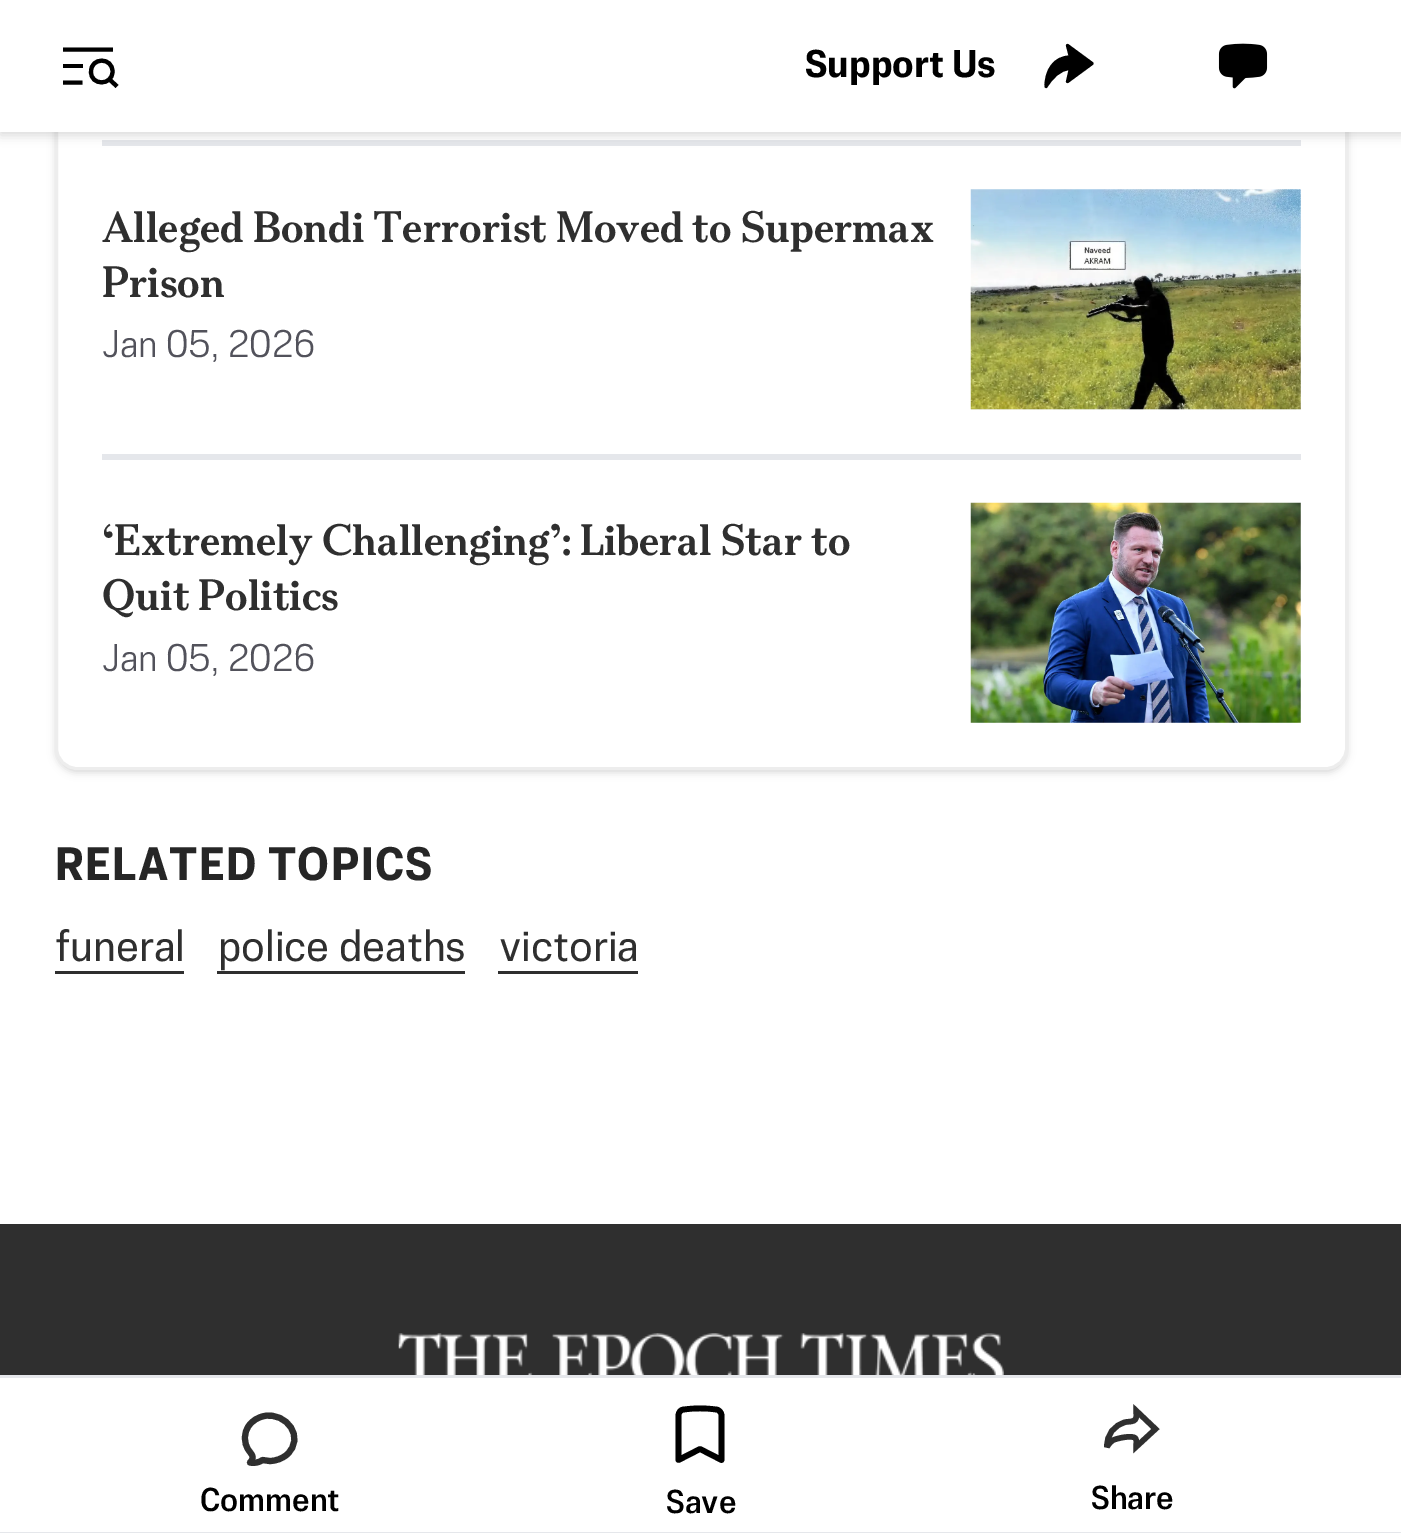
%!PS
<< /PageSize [1401 1533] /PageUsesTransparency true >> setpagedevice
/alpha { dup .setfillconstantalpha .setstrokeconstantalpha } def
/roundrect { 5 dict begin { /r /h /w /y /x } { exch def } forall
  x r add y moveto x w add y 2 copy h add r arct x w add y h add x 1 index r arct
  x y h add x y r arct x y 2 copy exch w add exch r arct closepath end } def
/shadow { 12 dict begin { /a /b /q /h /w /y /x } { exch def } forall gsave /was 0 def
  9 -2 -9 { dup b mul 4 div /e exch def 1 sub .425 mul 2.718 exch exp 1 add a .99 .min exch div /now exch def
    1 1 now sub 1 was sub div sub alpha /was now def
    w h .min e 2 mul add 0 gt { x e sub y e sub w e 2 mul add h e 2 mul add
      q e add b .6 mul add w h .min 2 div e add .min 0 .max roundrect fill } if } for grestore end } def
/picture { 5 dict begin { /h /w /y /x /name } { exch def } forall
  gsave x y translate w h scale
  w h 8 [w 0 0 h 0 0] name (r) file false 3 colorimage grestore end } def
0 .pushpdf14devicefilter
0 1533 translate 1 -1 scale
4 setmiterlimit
1 setgray
0 0 1401 1533 rectfill
gsave
newpath 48 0 moveto 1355 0 lineto 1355 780 lineto 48 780 lineto closepath 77 -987 moveto 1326 -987 lineto 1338 -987 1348 -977 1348 -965 curveto 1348 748 lineto 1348 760 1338 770 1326 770 curveto 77 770 lineto 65 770 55 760 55 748 curveto 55 -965 lineto 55 -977 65 -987 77 -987 curveto closepath eoclip newpath
0 setgray
58 -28 1287 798 19 3 0.1 shadow
grestore
gsave
newpath 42 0 moveto 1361 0 lineto 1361 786 lineto 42 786 lineto closepath 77 -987 moveto 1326 -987 lineto 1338 -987 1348 -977 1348 -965 curveto 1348 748 lineto 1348 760 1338 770 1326 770 curveto 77 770 lineto 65 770 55 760 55 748 curveto 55 -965 lineto 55 -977 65 -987 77 -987 curveto closepath eoclip newpath
0 setgray
55 -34 1293 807 22 4 0.1 shadow
grestore
0.929 setgray
3 setlinewidth
56.5 -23.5 1290 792 20.5 roundrect stroke
0.898 0.906 0.922 setrgbcolor
102 140 1199 6 rectfill
0 setgray
0 3 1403 132 0 5.5 0.15 shadow
1 setgray
0 0 1401 132 rectfill
0 setgray
63 64 20 4 rectfill
4.1 setlinewidth
1 setlinejoin
newpath 63 49.5 moveto 113 49.5 lineto 63 82.5 moveto 82.5 82.5 lineto stroke
2 setlinecap
newpath 115.5 85 moveto 109.5 79.5 lineto 112.5 71.5 moveto 112.5 86 90.5 86 91 71.5 curveto 91 57 112.5 57 112.5 71.5 curveto closepath stroke
/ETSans-Bold [38.5 0 0 -38.5 0 0] selectfont
805 77 moveto (Support Us) show
newpath 1067 45 moveto 1071 57 lineto 1054 57 1046 71 1046 86 curveto 1052 78 1060 68 1071 68 curveto 1067 81 lineto 1092 63 lineto closepath fill
3.1 setlinewidth
0 setlinecap
newpath 1067.5 45.5 moveto 1070.5 57 lineto 1054 57 1046 71 1046 86.5 curveto 1051.5 78 1059.5 68.5 1070.5 68.5 curveto 1067.5 81.5 lineto 1092 63.5 lineto closepath stroke
(img1.rgb) 1218 43 50 46 picture
/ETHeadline-Medium [44 0 0 -44 0 0] selectfont
0.184 setgray
102 242 moveto (Alleged Bondi Terrorist Moved to Supermax) show
102 297 moveto (Prison) show
/ETSans-Light [38.5 0 0 -38.5 0 0] selectfont
0.322 0.322 0.357 setrgbcolor
102 357 moveto (Jan 05, 2026) show
0.953 0.957 0.965 setrgbcolor
971 190 330 220 rectfill
(img2.rgb) 970 189 331 221 picture
0.898 0.906 0.922 setrgbcolor
102 454 1199 6 rectfill
/ETHeadline-Medium [44 0 0 -44 0 0] selectfont
0.184 setgray
102 555 moveto (‘Extremely Challenging’: Liberal Star to) show
102 610 moveto (Quit Politics) show
/ETSans-Light [38.5 0 0 -38.5 0 0] selectfont
0.322 0.322 0.357 setrgbcolor
102 671 moveto (Jan 05, 2026) show
0.953 0.957 0.965 setrgbcolor
971 503 330 220 rectfill
(img3.rgb) 970 502 331 221 picture
/ETSans-Bold [46.75 0 0 -46.75 0 0] selectfont
0.149 setgray
55 880 moveto 1.2 0 (RELATED TOPICS) ashow
/ETSans-Regular [44 0 0 -44 0 0] selectfont
0.184 setgray
55 961 moveto (funeral) show
55 971 129 3 rectfill
218 961 moveto (police deaths) show
217 971 248 3 rectfill
499 961 moveto (victoria) show
498 971 140 3 rectfill
0.898 0.906 0.922 setrgbcolor
0 1375 1401 3 rectfill
0 1532 1401 1 rectfill
0.184 setgray
6.1 setlinewidth
1 setlinecap
newpath 269.5 1461 moveto 276 1461 282.5 1458.5 287 1454.5 curveto 305.5 1437.5 286.5 1412 264.5 1416 curveto 258.5 1417 252.5 1420.5 249 1425.5 curveto 243.5 1433 243.5 1442.5 248.5 1450 curveto 252 1455 255 1457 250 1462.5 curveto 254.5 1463.5 259 1462.5 262.5 1460 curveto closepath stroke
/ETSans-Medium [33 0 0 -33 0 0] selectfont
0 setgray
200 1511 moveto (Comment) show
5.7 setlinewidth
newpath 716 1409.5 moveto 719 1409.5 721.5 1412.5 721.5 1415.5 curveto 721.5 1460 lineto 700 1449 lineto 678.5 1460 lineto 678.5 1415.5 lineto 678.5 1412.5 680.5 1409.5 684 1409.5 curveto 694.5 1408 705.5 1408 716 1409.5 curveto closepath stroke
666 1513 moveto (Save) show
0.184 setgray
5.5 setlinewidth
0 setlinecap
0 setlinejoin
newpath 1155.5 1429 moveto 1136 1447 lineto 1136 1444.5 1137 1440.5 1135.5 1438.5 curveto 1133 1434.5 1116.5 1438.5 1113.5 1440 curveto 1110.5 1441.5 1108.5 1444 1107 1447 curveto 1106.5 1434.5 1114 1425 1126 1422 curveto 1129 1421.5 1134 1422 1135.5 1419 curveto 1137 1417 1136 1413 1136 1410.5 curveto closepath stroke
0 setgray
1091 1509 moveto (Share) show
0.184 setgray
0 1224 1401 151 rectfill
(img4.rgb) 398 1333 606 42 picture
.poppdf14devicefilter showpage
